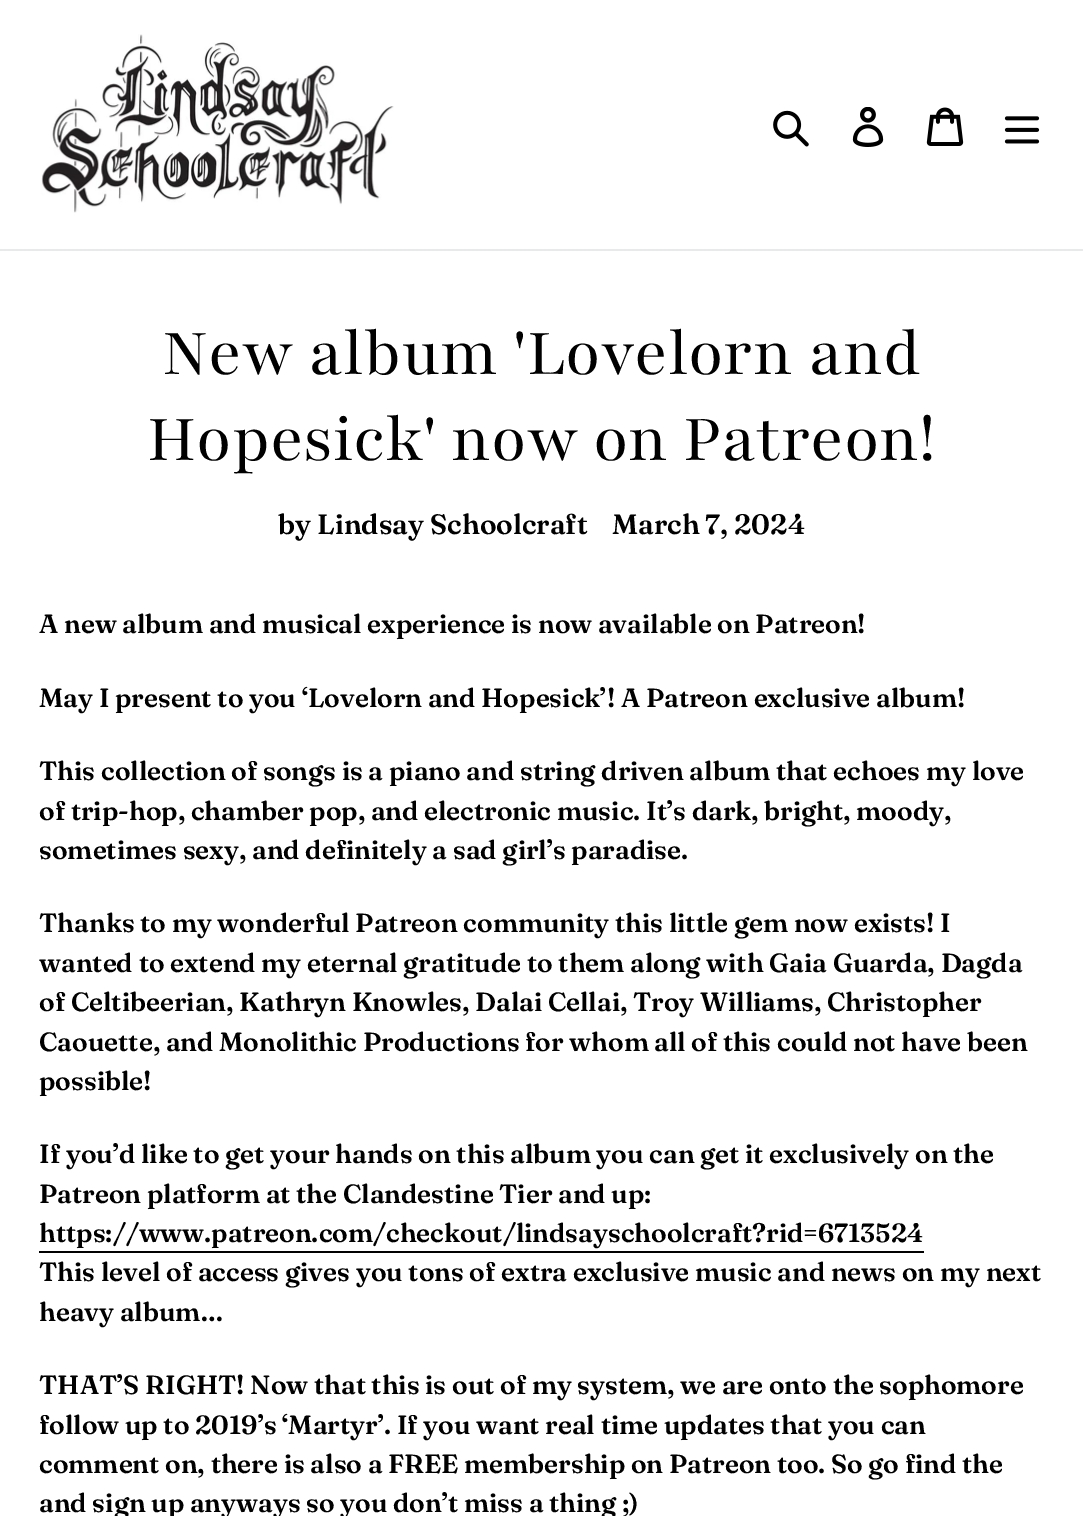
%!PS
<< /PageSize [1083 1516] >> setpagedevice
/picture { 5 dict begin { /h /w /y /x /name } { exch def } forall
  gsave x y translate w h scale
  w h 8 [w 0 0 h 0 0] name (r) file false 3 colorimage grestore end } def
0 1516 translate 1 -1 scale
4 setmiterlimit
1 setgray
0 0 1083 1516 rectfill
0.91 0.914 0.922 setrgbcolor
0 249 1083 2 rectfill
(img1.rgb) 41 34 353 179 picture
(img2.rgb) 773 110 36 37 picture
(img3.rgb) 852 107 32 40 picture
(img4.rgb) 926 107 38 39 picture
(img5.rgb) 1004 116 36 28 picture
/Playfair-Regular [71.75 0 0 -71.75 0 0] selectfont
0 setgray
162 374 moveto (New album 'Lovelorn and) show
147 460 moveto (Hopesick' now on Patreon!) show
/Fraunces-SemiBold [28 0 0 -28 0 0] selectfont
278 534 moveto (by Lindsay Schoolcraft) show
612 534 moveto (March 7, 2024) show
/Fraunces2-SemiBold [26.25 0 0 -26.25 0 0] selectfont
39 633 moveto (A new album and musical experience is now available on Patreon!) show
39 707 moveto (May I present to you ‘Lovelorn and Hopesick’! A Patreon exclusive album!) show
39 780 moveto (This collection of songs is a piano and string driven album that echoes my love) show
39 820 moveto (of trip-hop, chamber pop, and electronic music. It’s dark, bright, moody,) show
39 859 moveto (sometimes sexy, and definitely a sad girl’s paradise.) show
39 932 moveto (Thanks to my wonderful Patreon community this little gem now exists! I) show
39 972 moveto (wanted to extend my eternal gratitude to them along with Gaia Guarda, Dagda) show
39 1011 moveto (of Celtibeerian, Kathryn Knowles, Dalai Cellai, Troy Williams, Christopher) show
39 1051 moveto (Caouette, and Monolithic Productions for whom all of this could not have been) show
39 1090 moveto (possible!) show
39 1163 moveto (If you’d like to get your hands on this album you can get it exclusively on the) show
39 1203 moveto (Patreon platform at the Clandestine Tier and up:) show
39 1242 moveto (https://www.patreon.com/checkout/lindsayschoolcraft?rid=6713524) show
39 1251 885 2 rectfill
39 1281 moveto (This level of access gives you tons of extra exclusive music and news on my next) show
39 1321 moveto (heavy album…) show
39 1394 moveto (THAT’S RIGHT! Now that this is out of my system, we are onto the sophomore) show
39 1434 moveto (follow up to 2019’s ‘Martyr’. If you want real time updates that you can) show
39 1473 moveto (comment on, there is also a FREE membership on Patreon too. So go find the) show
39 1512 moveto (and sign up anyways so you don’t miss a thing ;\)) show
showpage
